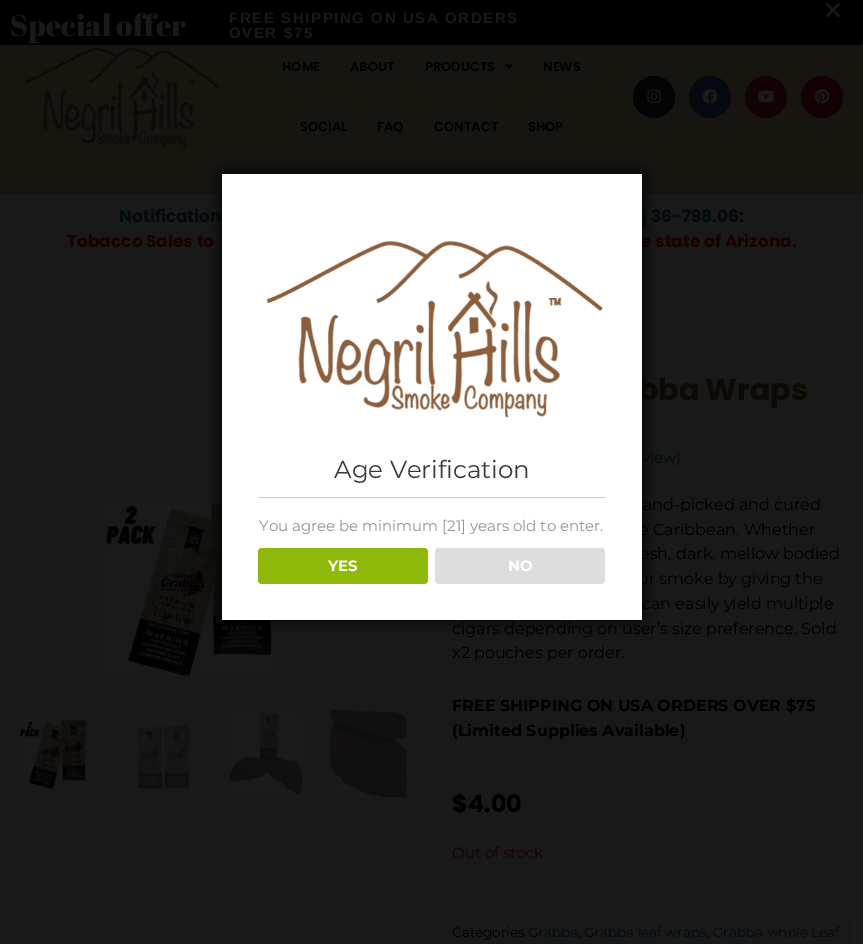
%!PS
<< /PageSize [863 944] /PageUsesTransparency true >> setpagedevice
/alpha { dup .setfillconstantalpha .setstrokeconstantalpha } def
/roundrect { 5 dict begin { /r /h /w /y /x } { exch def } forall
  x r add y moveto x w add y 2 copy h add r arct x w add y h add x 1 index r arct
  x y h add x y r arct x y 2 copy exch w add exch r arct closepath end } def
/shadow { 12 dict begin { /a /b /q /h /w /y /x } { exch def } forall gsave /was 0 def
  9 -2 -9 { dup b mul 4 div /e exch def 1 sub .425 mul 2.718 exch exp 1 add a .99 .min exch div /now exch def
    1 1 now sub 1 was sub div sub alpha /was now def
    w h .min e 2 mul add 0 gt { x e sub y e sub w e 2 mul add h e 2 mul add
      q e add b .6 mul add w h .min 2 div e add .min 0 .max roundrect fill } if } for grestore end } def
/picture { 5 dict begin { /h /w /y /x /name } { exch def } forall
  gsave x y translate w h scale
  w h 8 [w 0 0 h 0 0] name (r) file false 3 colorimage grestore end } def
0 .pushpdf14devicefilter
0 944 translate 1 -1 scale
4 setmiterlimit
0.098 setgray
0 0 863 944 rectfill
0 setgray
0 0 863 45 rectfill
(img1.rgb) 825 2 16 15 picture
/AbrilFatface-Regular [30 0 0 -30 0 0] selectfont
0.098 setgray
10 36 moveto (Special offer) show
/LiberationSans-Bold [15 0 0 -15 0 0] selectfont
229 23 moveto 1.6 0 (FREE SHIPPING ON USA ORDERS) ashow
229 38 moveto 1.6 0 (OVER $75) ashow
0.09 0.082 0.063 setrgbcolor
0 45 863 148 rectfill
0.082 setgray
0 193 863 1 rectfill
(img2.rgb) 24 47 195 102 picture
/Poppins-SemiBold [13 0 0 -13 0 0] selectfont
0 setgray
282 71 moveto (HOME) show
350 71 moveto (ABOUT) show
425 71 moveto (PRODUCTS) show
(img3.rgb) 505 64 8 5 picture
543 71 moveto (NEWS) show
300 131 moveto (SOCIAL) show
377 131 moveto (FAQ) show
434 131 moveto (CONTACT) show
528 131 moveto (SHOP) show
0.016 setgray
newpath 654 97 21 0 360 arc closepath fill
(img4.rgb) 647 89 14 14 picture
0.024 0.035 0.059 setrgbcolor
newpath 710 97 21 0 360 arc closepath fill
(img5.rgb) 702 89 16 15 picture
0.078 0.012 0.012 setrgbcolor
newpath 766 97 21 0 360 arc closepath fill
(img6.rgb) 758 90 16 12 picture
0.075 0.004 0.012 setrgbcolor
newpath 822 97 21 0 360 arc closepath fill
(img7.rgb) 814 89 16 15 picture
/Poppins-Bold [17 0 0 -17 0 0] selectfont
0 0.043 0.071 setrgbcolor
119 222 moveto (Notification) show
637 222 moveto (§ 36-798.06:) show
0.094 0.012 0.004 setrgbcolor
67 247 moveto (Tobacco Sales to) show
641 247 moveto (e state of Arizona.) show
(img8.rgb) 105 503 167 174 picture
(img9.rgb) 20 719 67 71 picture
(img10.rgb) 136 725 54 64 picture
(img11.rgb) 229 713 74 82 picture
(img12.rgb) 330 710 77 87 picture
/Poppins-Bold [30 0 0 -30 0 0] selectfont
0.051 0.035 0.016 setrgbcolor
638 400 moveto (bba Wraps) show
/Montserrat-Regular [15 0 0 -15 0 0] selectfont
0 0.043 0.071 setrgbcolor
642 463 moveto (view\)) show
/Montserrat-Regular [16 0 0 -16 0 0] selectfont
0 setgray
643 510 moveto (and-picked and cured) show
639 535 moveto (e Caribbean. Whether) show
640 559 moveto (esh, dark, mellow bodied) show
638 584 moveto (ur smoke by giving the) show
642 609 moveto (can easily yield multiple) show
452 634 moveto (cigars depending on user’s size preference. Sold) show
452 658 moveto (x2 pouches per order.) show
/Montserrat-Bold [16 0 0 -16 0 0] selectfont
452 711 moveto (FREE SHIPPING ON USA ORDERS OVER $75) show
452 736 moveto (\(Limited Supplies Available\)) show
/Poppins-Bold [24 0 0 -24 0 0] selectfont
452 812 moveto ($4.00) show
/Montserrat-Regular [15 0 0 -15 0 0] selectfont
0.094 0.012 0.004 setrgbcolor
452 858 moveto (Out of stock) show
0.086 setgray
445 912 405 1 rectfill
/Montserrat-Regular [13.5 0 0 -13.5 0 0] selectfont
0 setgray
452 937 moveto (Categories) show
0 0.043 0.071 setrgbcolor
528 937 moveto (Grabba) show
0 setgray
578 937 moveto (,) show
0 0.043 0.071 setrgbcolor
584 937 moveto (Grabba leaf wraps) show
0 setgray
707 937 moveto (,) show
0 0.043 0.071 setrgbcolor
713 937 moveto (Grabba whole Leaf) show
0.086 setgray
849 920 2 24 rectfill
0 setgray
222 174 420 446 0 7.5 1 shadow
1 setgray
222 174 420 446 rectfill
(img13.rgb) 266 241 337 177 picture
0.8 setgray
258 497 348 1 rectfill
/Montserrat-Regular [24.5 0 0 -24.5 0 0] selectfont
0.227 setgray
334 478 moveto (Age Verification) show
/Montserrat-Regular [15 0 0 -15 0 0] selectfont
0.584 setgray
259 531 moveto (You agree be minimum [21] years old to enter.) show
0.557 0.725 0.031 setrgbcolor
258 548 170 36 4 roundrect fill
/Montserrat-Bold [15 0 0 -15 0 0] selectfont
1 setgray
328 571 moveto (YES) show
0.867 setgray
435 548 170 36 4 roundrect fill
1 setgray
508 571 moveto (NO) show
.poppdf14devicefilter showpage
